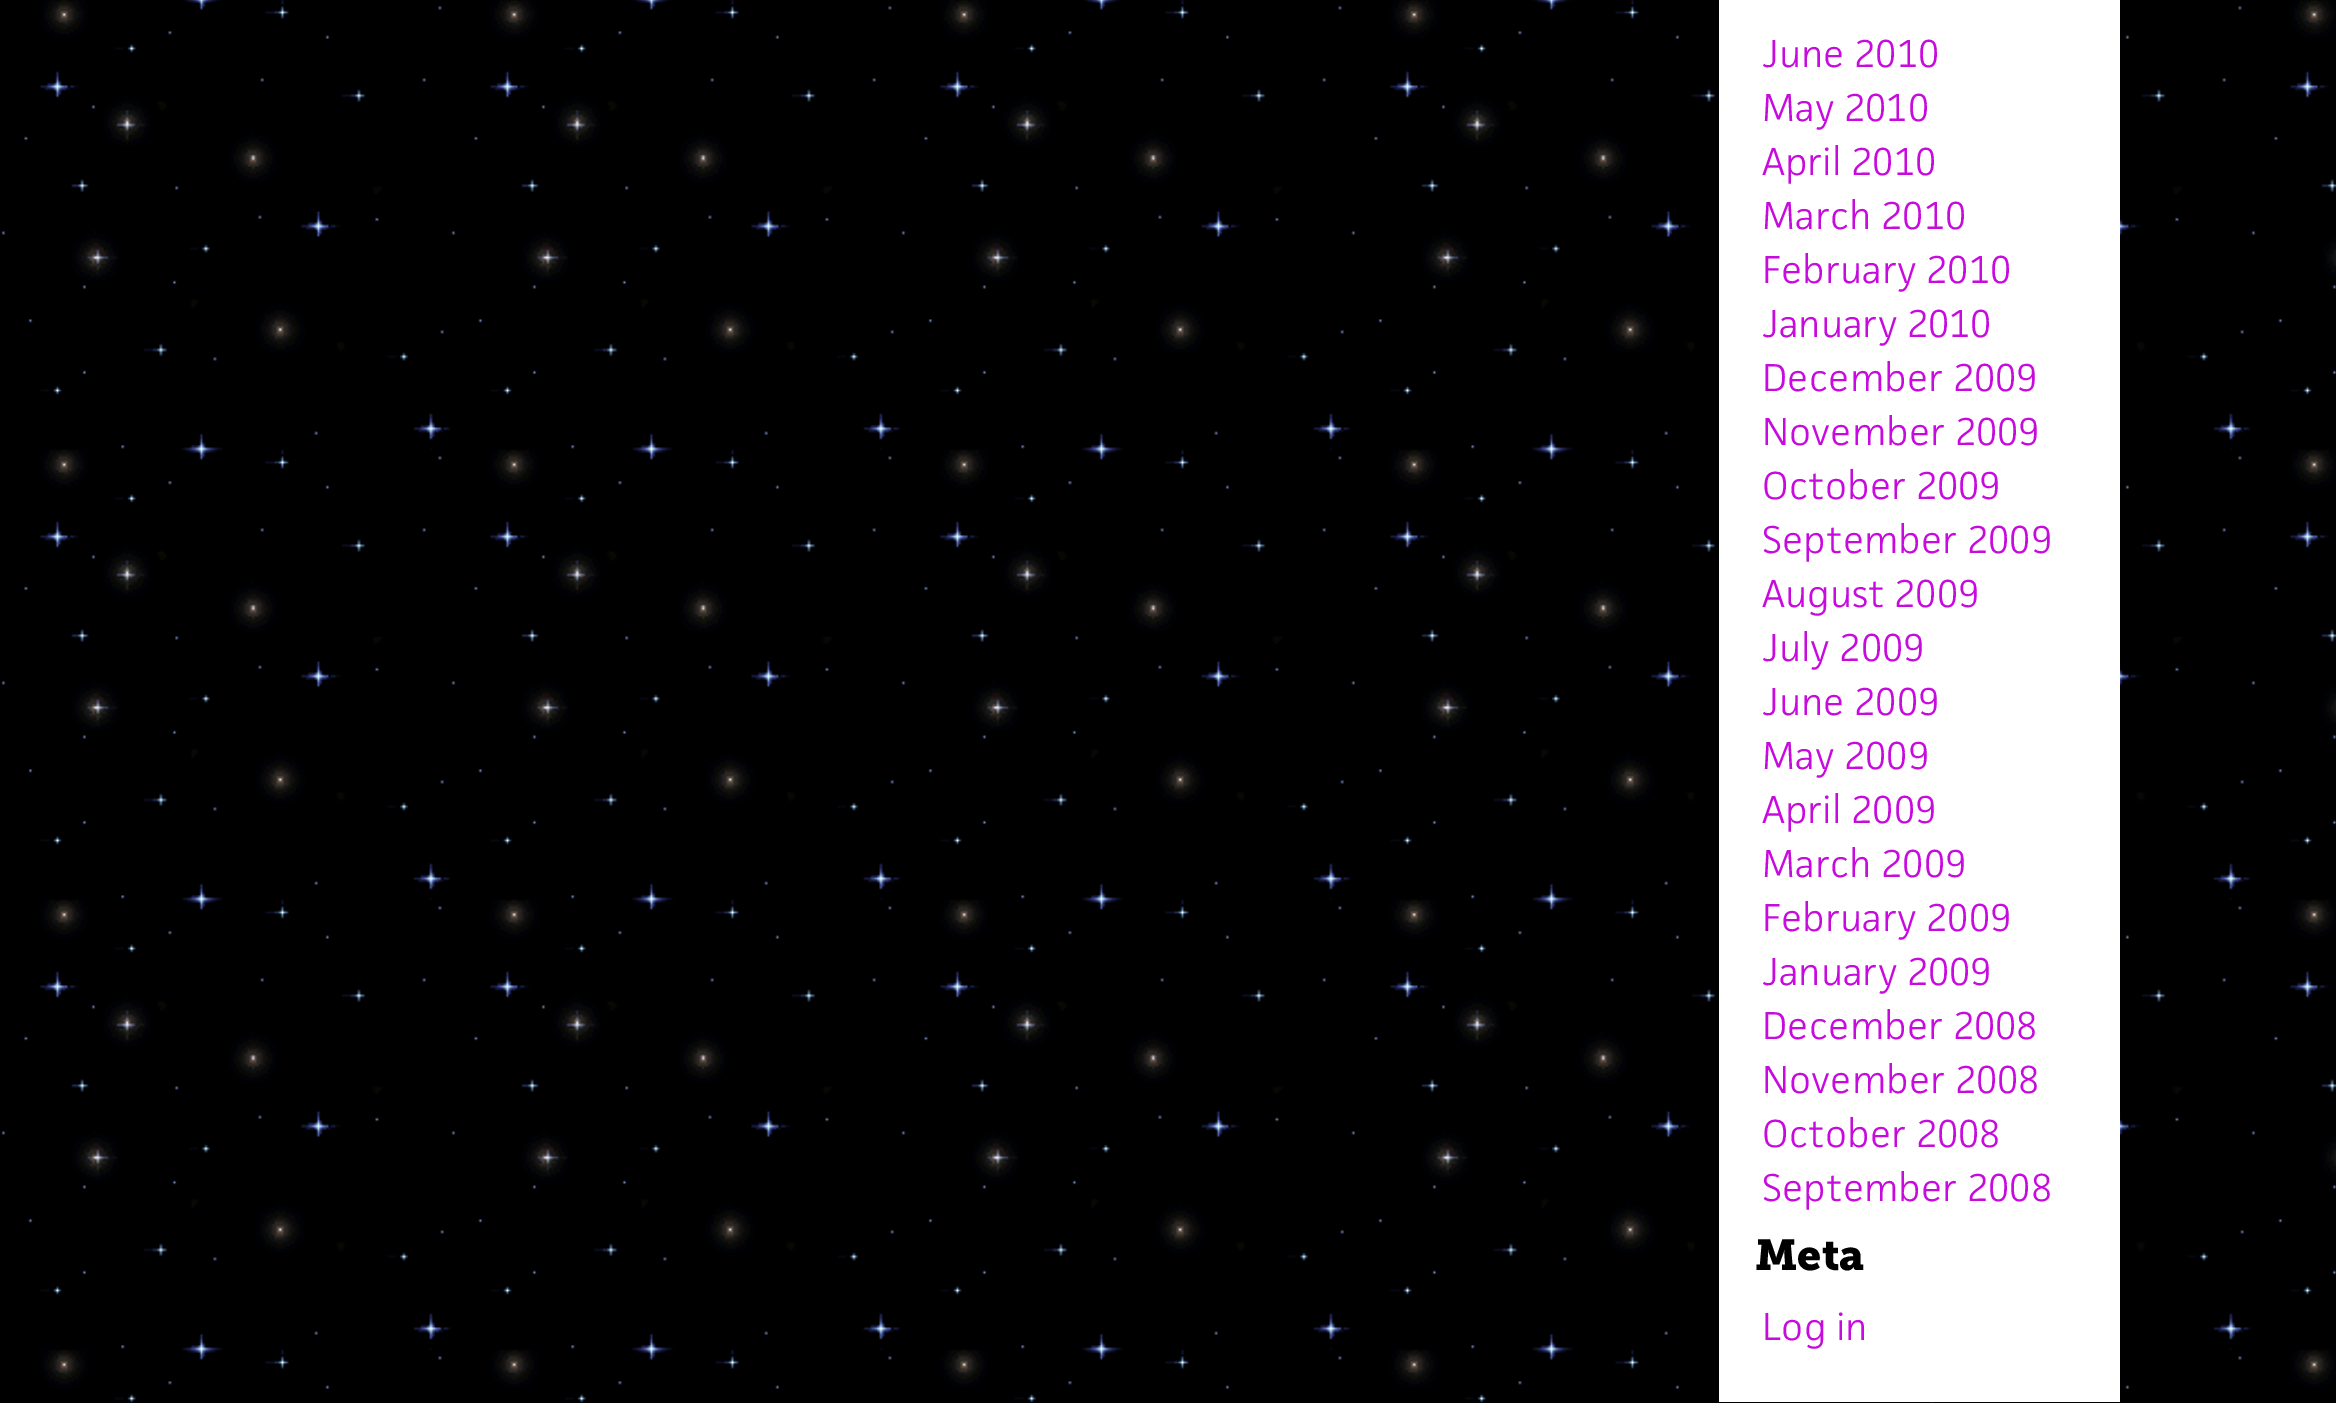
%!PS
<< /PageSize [2336 1403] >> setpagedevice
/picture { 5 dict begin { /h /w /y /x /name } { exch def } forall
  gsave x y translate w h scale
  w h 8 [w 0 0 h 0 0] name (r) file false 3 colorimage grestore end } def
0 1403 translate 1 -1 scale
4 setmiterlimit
1 setgray
0 0 2336 1403 rectfill
(img1.rgb) 0 0 2336 1403 picture
1719 0 401 1402 rectfill
/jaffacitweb-Regular [36 0 0 -36 0 0] selectfont
0.78 0.039 0.867 setrgbcolor
1762 67 moveto (June 2010) show
1762 121 moveto (May 2010) show
1762 175 moveto (April 2010) show
1762 229 moveto (March 2010) show
1762 283 moveto (February 2010) show
1762 337 moveto (January 2010) show
1762 391 moveto (December 2009) show
1762 445 moveto (November 2009) show
1762 499 moveto (October 2009) show
1762 553 moveto (September 2009) show
1762 607 moveto (August 2009) show
1762 661 moveto (July 2009) show
1762 715 moveto (June 2009) show
1762 769 moveto (May 2009) show
1762 823 moveto (April 2009) show
1762 877 moveto (March 2009) show
1762 931 moveto (February 2009) show
1762 985 moveto (January 2009) show
1762 1039 moveto (December 2008) show
1762 1093 moveto (November 2008) show
1762 1147 moveto (October 2008) show
1762 1201 moveto (September 2008) show
/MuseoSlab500-Bold [43 0 0 -43 0 0] selectfont
0 setgray
1755 1270 moveto (Meta) show
/jaffacitweb-Regular [36 0 0 -36 0 0] selectfont
0.78 0.039 0.867 setrgbcolor
1762 1340 moveto (Log in) show
showpage
